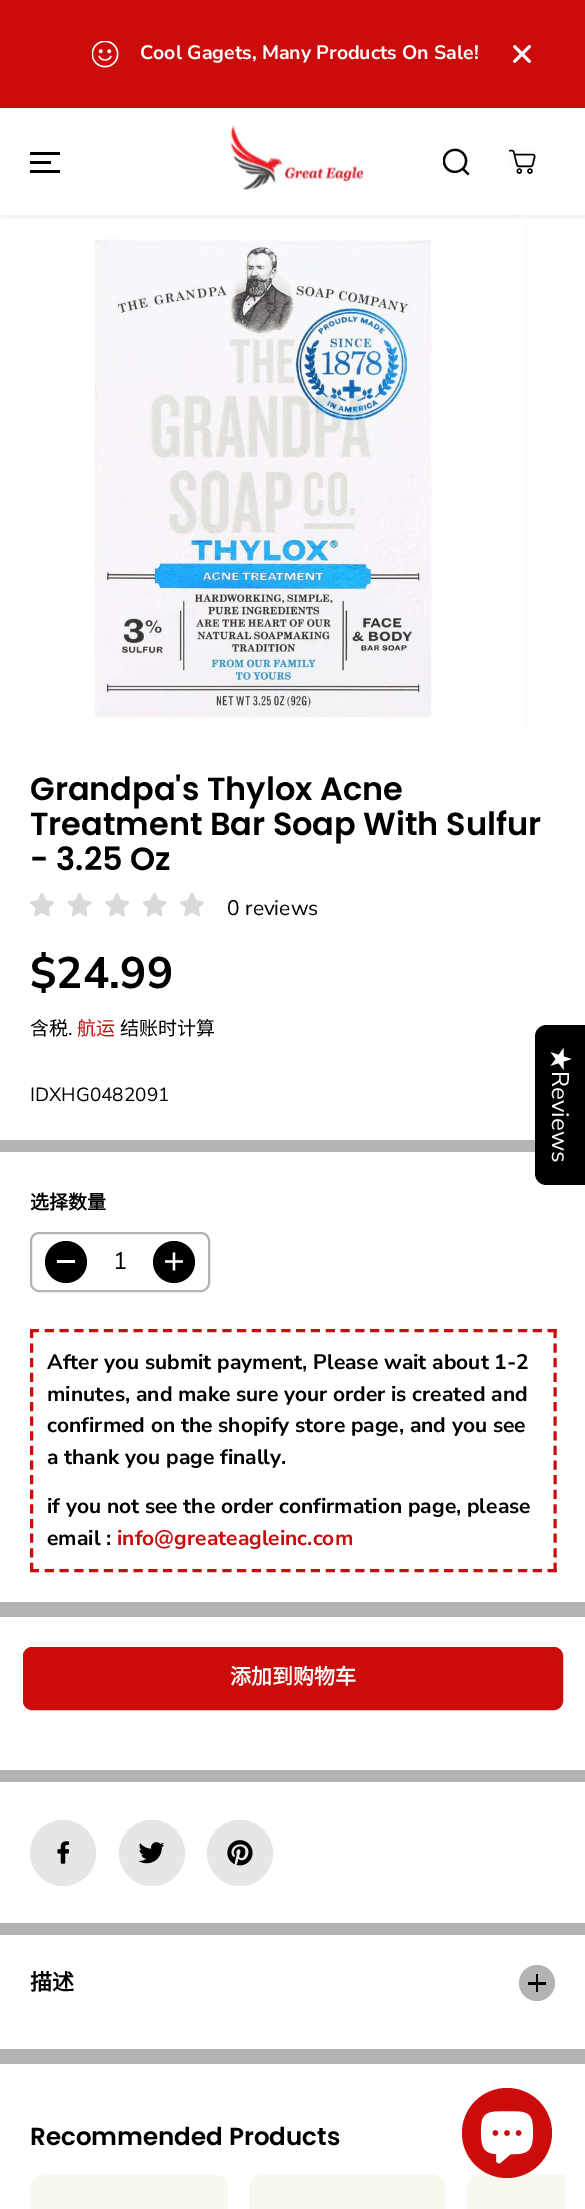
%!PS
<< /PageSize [585 2209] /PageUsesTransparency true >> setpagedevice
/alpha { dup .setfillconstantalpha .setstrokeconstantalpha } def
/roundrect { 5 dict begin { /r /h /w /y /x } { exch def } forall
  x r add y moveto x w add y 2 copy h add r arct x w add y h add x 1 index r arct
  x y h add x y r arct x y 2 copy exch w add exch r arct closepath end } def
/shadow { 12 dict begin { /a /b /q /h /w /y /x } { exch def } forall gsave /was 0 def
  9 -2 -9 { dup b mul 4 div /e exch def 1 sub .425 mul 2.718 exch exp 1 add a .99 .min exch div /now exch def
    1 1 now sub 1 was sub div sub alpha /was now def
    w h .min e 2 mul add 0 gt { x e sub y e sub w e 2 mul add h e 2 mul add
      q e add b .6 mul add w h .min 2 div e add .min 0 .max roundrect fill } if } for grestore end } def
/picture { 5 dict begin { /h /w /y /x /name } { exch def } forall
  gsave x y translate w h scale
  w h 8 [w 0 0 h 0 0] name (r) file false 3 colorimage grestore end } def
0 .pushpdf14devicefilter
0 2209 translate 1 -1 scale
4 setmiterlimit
1 setgray
0 0 585 2209 rectfill
0.8 0.043 0.043 setrgbcolor
0 0 585 108 rectfill
(img1.rgb) 92 41 27 27 picture
/NunitoSans-Bold [19.5 0 0 -19.5 0 0] selectfont
1 setgray
140 59 moveto (Cool Gagets, Many Products On Sale!) show
(img2.rgb) 513 45 18 18 picture
0.973 0.973 0.945 setrgbcolor
0 215 527 526 15 roundrect fill
(img6.rgb) 0 215 526 526 picture
newpath 557 215 moveto 585 215 lineto 585 741 lineto 557 741 lineto 548.5 741 542 734.5 542 726 curveto 542 230 lineto 542 221.5 548.5 215 557 215 curveto closepath fill
(img7.rgb) 542 215 43 526 picture
gsave
newpath 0 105 moveto 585 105 lineto 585 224 lineto 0 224 lineto closepath 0 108 moveto 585 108 lineto 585 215 lineto 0 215 lineto closepath eoclip newpath
0 setgray
0 111 585 107 0 1.5 0.05 shadow
grestore
0 setgray
30 161 21 3 rectfill
30 152 30 3 rectfill
30 170 30 3 rectfill
(img3.rgb) 227 125 141 65 picture
(img4.rgb) 443 148 27 28 picture
(img5.rgb) 509 149 27 25 picture
/Poppins-SemiBold [32 0 0 -32 0 0] selectfont
30 800 moveto (Grandpa's Thylox Acne) show
30 835 moveto (Treatment Bar Soap With Sulfur) show
30 870 moveto (- 3.25 Oz) show
(img8.rgb) 30 893 24 24 picture
(img9.rgb) 68 893 24 24 picture
(img8.rgb) 105 893 24 24 picture
(img9.rgb) 143 893 24 24 picture
(img8.rgb) 180 893 24 24 picture
/NunitoSans-Regular [21 0 0 -21 0 0] selectfont
227 915 moveto (0 reviews) show
/NunitoSans-Bold [44 0 0 -44 0 0] selectfont
30 988 moveto ($24.99) show
/NotoSansCJKSC-Regular [19 0 0 -19 0 0] selectfont
30 1035 moveto (含税) show
/NunitoSans-Regular [19 0 0 -19 0 0] selectfont
68 1035 moveto (.) show
/NotoSansCJKSC-Regular [19 0 0 -19 0 0] selectfont
0.8 0.043 0.043 setrgbcolor
77 1035 moveto (航运) show
0 setgray
120 1035 moveto (结账时计算) show
/NunitoSans-Regular [19 0 0 -19 0 0] selectfont
30 1101 moveto (IDXHG0482091) show
0.702 setgray
0 1140 535 12 rectfill
/NotoSansCJKSC-Bold [19 0 0 -19 0 0] selectfont
0 setgray
30 1209 moveto (选择数量) show
0.702 setgray
2 setlinewidth
31 1233 178 58 8 roundrect stroke
0 setgray
newpath 66 1262 21 0 360 arc closepath fill
1 setgray
57 1260 18 3 rectfill
/NunitoSans-Regular [24 0 0 -24 0 0] selectfont
0 setgray
113 1269 moveto (1) show
newpath 174 1262 21 0 360 arc closepath fill
(img10.rgb) 165 1252 18 19 picture
0.8 0.043 0.043 setrgbcolor
3 setlinewidth
[9 5.79] 0 setdash
newpath 30 1330.5 moveto 556.5 1330.5 lineto stroke
[9 5.62] 0 setdash
newpath 555 1329 moveto 555 1572 lineto stroke
[9 5.79] 0 setdash
newpath 30 1570.5 moveto 556.5 1570.5 lineto stroke
[9 5.62] 0 setdash
newpath 31.5 1329 moveto 31.5 1572 lineto stroke
/NunitoSans-Bold [21 0 0 -21 0 0] selectfont
0 setgray
47 1369 moveto (After you submit payment, Please wait about 1-2) show
47 1401 moveto (minutes, and make sure your order is created and) show
47 1432 moveto (confirmed on the shopify store page, and you see) show
47 1464 moveto (a thank you page finally.) show
47 1513 moveto (if you not see the order confirmation page, please) show
47 1545 moveto (email :) show
0.8 0.043 0.043 setrgbcolor
117 1545 moveto (info@greateagleinc.com) show
0.702 setgray
0 1602 585 15 rectfill
0.8 0.043 0.043 setrgbcolor
24.5 1648.5 537 60 7.5 roundrect gsave fill grestore
[] 0 setdash
stroke
/NotoSansCJKSC-Bold [21 0 0 -21 0 0] selectfont
1 setgray
230 1684 moveto (添加到购物车) show
0.702 setgray
0 1770 585 12 rectfill
0.902 setgray
newpath 63 1853 33 0 360 arc closepath fill
(img11.rgb) 57 1841 13 23 picture
newpath 152 1853 33 0 360 arc closepath fill
(img12.rgb) 138 1842 27 22 picture
newpath 240 1853 33 0 360 arc closepath fill
(img13.rgb) 227 1840 26 26 picture
0.702 setgray
0 1923 585 12 rectfill
0 2049 585 15 rectfill
/NotoSansCJKSC-Bold [22 0 0 -22 0 0] selectfont
0 setgray
30 1990 moveto (描述) show
0.702 setgray
newpath 537 1983 18 0 360 arc closepath fill
0 setgray
536 1974 2 18 rectfill
528 1982 18 3 rectfill
/Poppins-SemiBold [24.6 0 0 -24.6 0 0] selectfont
30 2145 moveto (Recommended Products) show
0.973 0.973 0.945 setrgbcolor
30 2174 198 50 15 roundrect fill
249 2174 197 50 15 roundrect fill
newpath 482 2174 moveto 566 2174 lineto 566 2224 lineto 482 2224 lineto 473.5 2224 467 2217.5 467 2209 curveto 467 2189 lineto 467 2180.5 473.5 2174 482 2174 curveto closepath fill
0 setgray
newpath 585 1025 moveto 585 1185 lineto 547 1185 lineto 540 1185 535 1180 535 1173 curveto 535 1037 lineto 535 1030 540 1025 547 1025 curveto closepath fill
/NotoSansCJKSC-Regular [24 0 0 -24 0 0] selectfont
1 setgray
gsave 552 1047 translate 90 rotate 0 0 moveto (★) show grestore
/NunitoSans-Regular [24 0 0 -24 0 0] selectfont
gsave 552 1071 translate 90 rotate 0 0 moveto (Reviews) show grestore
0.8 0.043 0.043 setrgbcolor
newpath 507 2133 45 0 360 arc closepath fill
(img14.rgb) 480 2111 54 53 picture
.poppdf14devicefilter showpage
